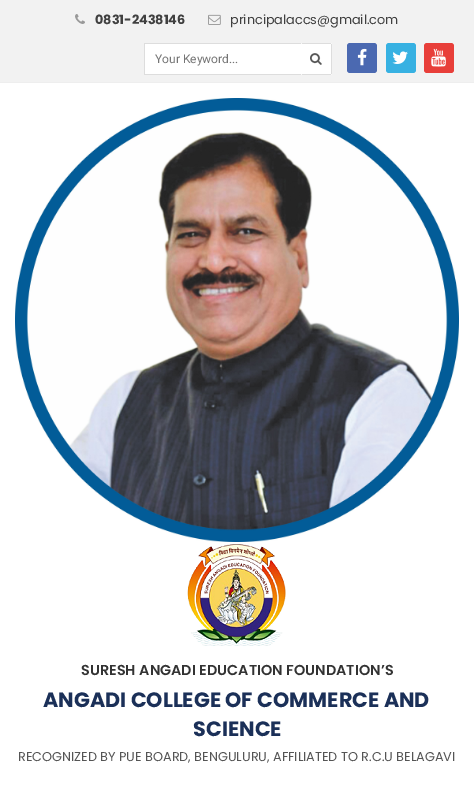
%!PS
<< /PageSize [474 796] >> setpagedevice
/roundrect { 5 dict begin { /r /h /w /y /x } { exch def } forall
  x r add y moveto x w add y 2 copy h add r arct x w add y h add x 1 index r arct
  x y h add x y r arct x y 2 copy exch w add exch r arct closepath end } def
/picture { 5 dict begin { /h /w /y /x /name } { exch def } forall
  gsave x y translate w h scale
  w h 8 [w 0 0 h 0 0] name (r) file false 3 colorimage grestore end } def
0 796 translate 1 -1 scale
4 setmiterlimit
0.949 setgray
0 0 474 796 rectfill
0.933 setgray
0 82 474 1 rectfill
(img1.rgb) 75 14 10 10 picture
/Poppins-Bold [12.8 0 0 -12.8 0 0] selectfont
0.251 setgray
95 24 moveto (0831-2438146) show
(img2.rgb) 208 14 13 11 picture
/Poppins-Regular [12.8 0 0 -12.8 0 0] selectfont
230 24 moveto (principalaccs@gmail.com) show
1 setgray
145 44 156 30 rectfill
0.867 setgray
144 43 157 1 rectfill
144 74 157 1 rectfill
144 43 1 32 rectfill
/Roboto-Regular [12 0 0 -12 0 0] selectfont
0.459 setgray
155 63 moveto (Your Keyword...) show
1 setgray
301 43 31 32 2 roundrect fill
(img3.rgb) 310 53 12 12 picture
0.867 setgray
302 43 29 1 rectfill
331 44 1 30 rectfill
302 74 29 1 rectfill
0.294 0.412 0.694 setrgbcolor
347 43 30 30 3 roundrect fill
(img4.rgb) 357 48 10 18 picture
0.216 0.694 0.886 setrgbcolor
386 43 30 30 3 roundrect fill
(img5.rgb) 392 51 16 13 picture
0.91 0.247 0.227 setrgbcolor
424 43 30 30 3 roundrect fill
(img6.rgb) 431 48 15 19 picture
1 setgray
0 83 474 713 rectfill
(img7.rgb) 15 98 444 444 picture
(img8.rgb) 187 544 99 102 picture
/Poppins-SemiBold [14.4 0 0 -14.4 0 0] selectfont
0.2 setgray
81 675 moveto (SURESH ANGADI EDUCATION FOUNDATION’S) show
/Poppins-Bold [20.75 0 0 -20.75 0 0] selectfont
0.106 0.188 0.345 setrgbcolor
43 707 moveto (ANGADI COLLEGE OF COMMERCE AND) show
193 736 moveto (SCIENCE) show
/Poppins-Regular [12.8 0 0 -12.8 0 0] selectfont
0.333 setgray
18 761 moveto (RECOGNIZED BY PUE BOARD, BENGULURU, AFFILIATED TO R.C.U BELAGAVI) show
showpage
